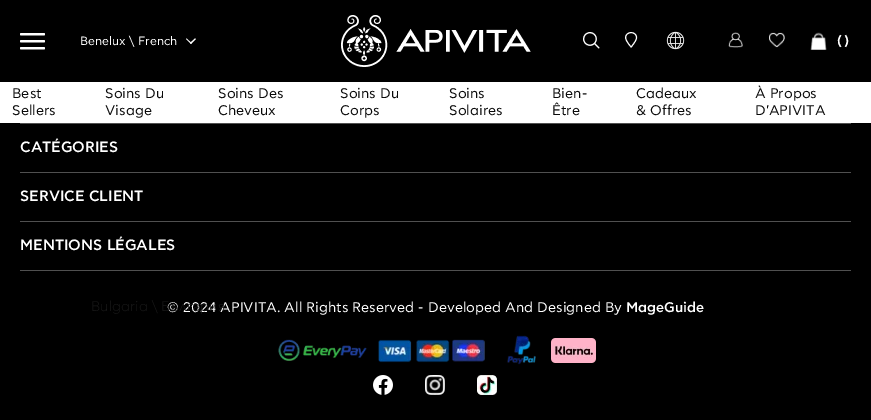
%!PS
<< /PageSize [871 420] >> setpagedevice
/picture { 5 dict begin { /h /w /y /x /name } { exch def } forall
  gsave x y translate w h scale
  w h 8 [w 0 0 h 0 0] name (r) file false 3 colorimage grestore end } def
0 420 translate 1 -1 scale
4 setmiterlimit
0 setgray
0 0 871 420 rectfill
(img1.rgb) 20 33 25 17 picture
/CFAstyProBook-Regular [12 0 0 -12 0 0] selectfont
1 setgray
80 45 moveto (Benelux \\ French) show
newpath 195 38.5 moveto 196 39 lineto 191 44 lineto 190 43 lineto closepath fill
newpath 186.5 38.5 moveto 191.5 43 lineto 191 44 lineto 186 39 lineto closepath fill
(img2.rgb) 341 15 190 52 picture
(img3.rgb) 583 32 17 17 picture
(img4.rgb) 625 32 13 16 picture
(img5.rgb) 728 32 15 16 picture
(img6.rgb) 769 32 16 16 picture
(img7.rgb) 810 32 17 18 picture
/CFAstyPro-SemiBold [14 0 0 -14 0 0] selectfont
837 45 moveto 2 0 (\(\)) ashow
(img8.rgb) 666 31 19 19 picture
/CFAstyProBook-Regular [14 0 0 -14 0 0] selectfont
167 312 moveto (© 2024 APIVITA. All Rights Reserved - Developed And Designed By) show
/CFAstyPro-Light [14 0 0 -14 0 0] selectfont
0.098 setgray
91 311 moveto (Bulgaria \\ България) show
1 setgray
0 82 871 41 rectfill
/CFAstyProBook-Regular [14 0 0 -14 0 0] selectfont
0.039 setgray
12 98 moveto (Best) show
12 115 moveto (Sellers) show
105 98 moveto (Soins Du) show
105 115 moveto (Visage) show
218 98 moveto (Soins Des) show
218 115 moveto (Cheveux) show
340 98 moveto (Soins Du) show
340 115 moveto (Corps) show
449 98 moveto (Soins) show
449 115 moveto (Solaires) show
552 98 moveto (Bien-) show
552 115 moveto (Être) show
636 98 moveto (Cadeaux) show
636 115 moveto (& Offres) show
755 98 moveto (À Propos) show
755 115 moveto (D'APIVITA) show
0.314 setgray
20 123 831 1 rectfill
20 172 831 1 rectfill
/CFAstyPro-Medium [15 0 0 -15 0 0] selectfont
1 setgray
20 152 moveto (CATÉGORIES) show
0.314 setgray
20 221 831 1 rectfill
1 setgray
20 201 moveto (SERVICE CLIENT) show
0.314 setgray
20 270 831 1 rectfill
1 setgray
20 250 moveto (MENTIONS LÉGALES) show
/CFAstyPro-Medium [14 0 0 -14 0 0] selectfont
626 312 moveto (MageGuide) show
(img9.rgb) 278 335 258 30 picture
(img10.rgb) 551 338 45 25 picture
(img11.rgb) 373 375 20 20 picture
(img12.rgb) 425 375 20 20 picture
(img13.rgb) 477 375 20 20 picture
showpage
